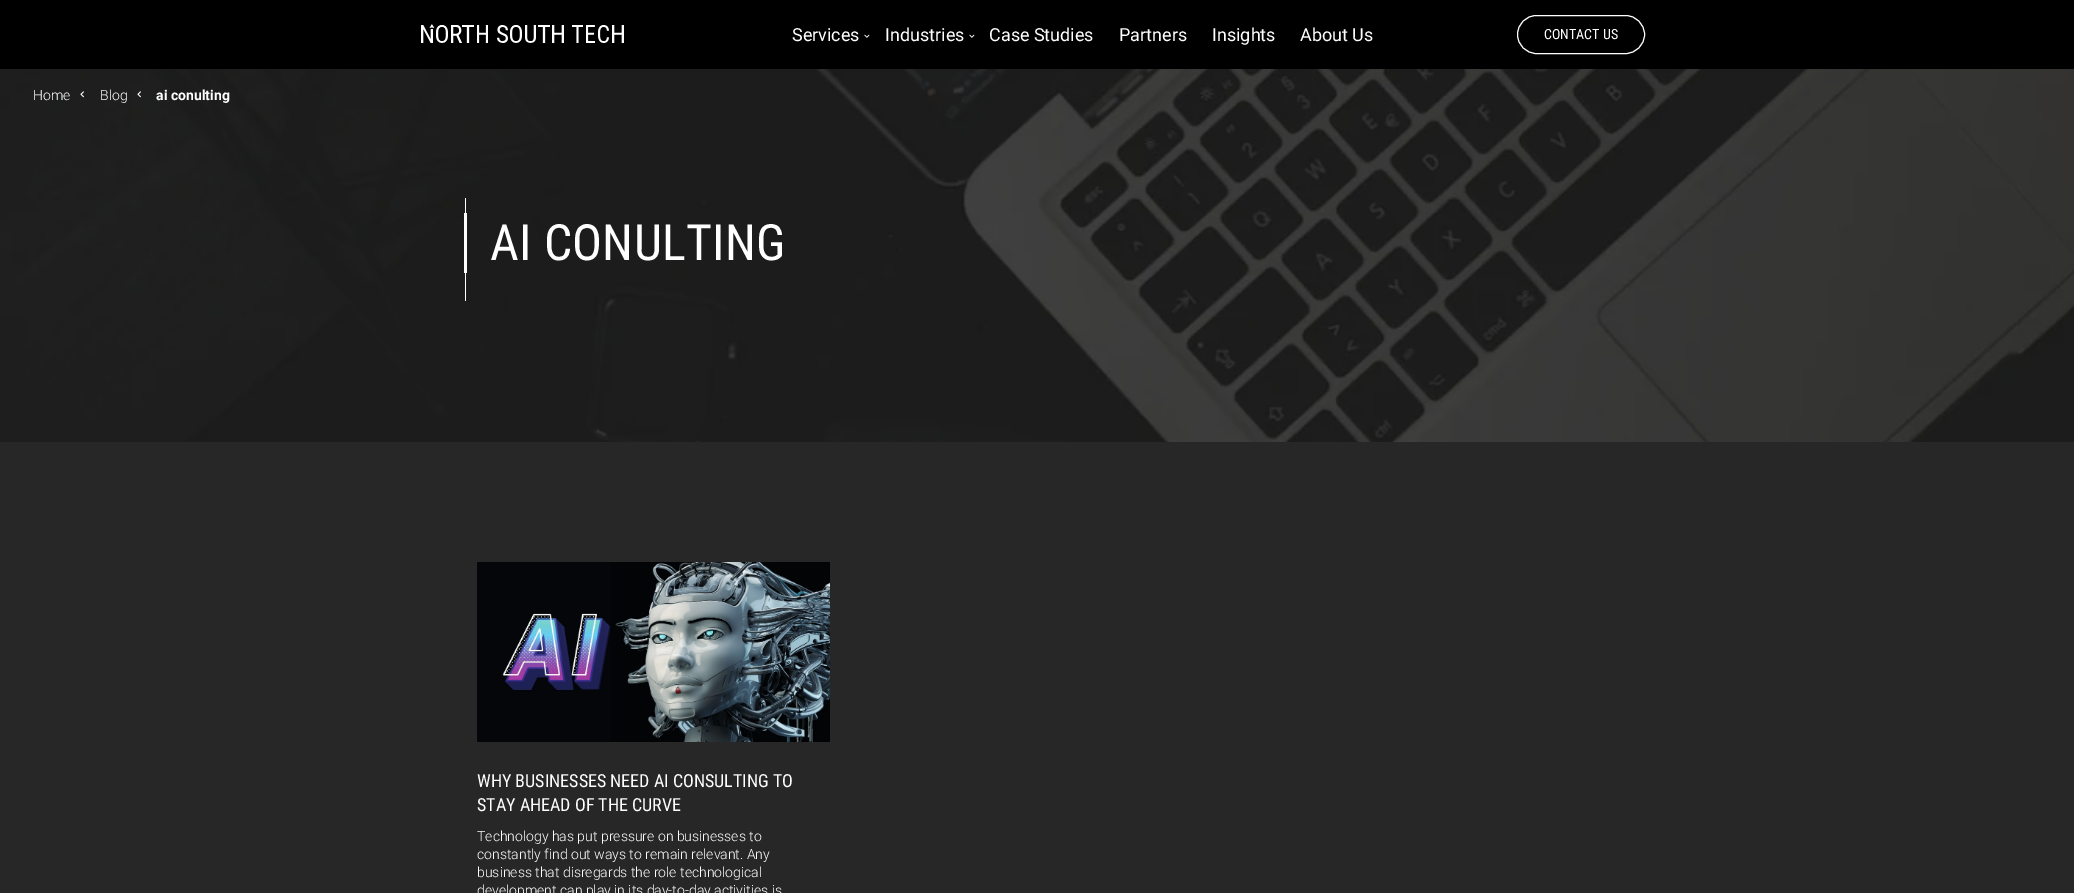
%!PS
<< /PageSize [2074 893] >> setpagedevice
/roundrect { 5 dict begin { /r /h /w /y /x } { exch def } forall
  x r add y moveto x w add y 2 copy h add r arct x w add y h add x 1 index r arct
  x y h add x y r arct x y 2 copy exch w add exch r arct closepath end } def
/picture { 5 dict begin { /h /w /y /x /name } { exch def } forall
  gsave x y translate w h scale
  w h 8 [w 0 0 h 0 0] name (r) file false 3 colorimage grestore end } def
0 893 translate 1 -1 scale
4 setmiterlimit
0.153 setgray
0 0 2074 893 rectfill
0 setgray
0 0 2074 69 rectfill
(img1.rgb) 421 24 203 19 picture
/Roboto-Regular [18 0 0 -18 0 0] selectfont
1 setgray
792 41 moveto (Services) show
(img2.rgb) 864 34 6 4 picture
885 41 moveto (Industries) show
(img2.rgb) 969 34 6 4 picture
989 41 moveto (Case Studies) show
1119 41 moveto (Partners) show
1212 41 moveto (Insights) show
1300 41 moveto (About Us) show
1517.5 15.5 127 38 19 roundrect stroke
/RobotoCondensed-Regular [14 0 0 -14 0 0] selectfont
1544 39 moveto (CONTACT US) show
(img3.rgb) 0 69 2074 373 picture
/Roboto-Light [14 0 0 -14 0 0] selectfont
33 100 moveto (Home) show
(img4.rgb) 80 91 4 7 picture
100 100 moveto (Blog) show
(img5.rgb) 137 91 4 7 picture
/Roboto-Bold [14 0 0 -14 0 0] selectfont
156 100 moveto (ai conulting) show
465 198 1 103 rectfill
464 213 3 60 rectfill
/RobotoCondensed-Regular [50 0 0 -50 0 0] selectfont
490 260 moveto 0.25 0 (AI CONULTING) ashow
(img6.rgb) 477 562 353 180 picture
/RobotoCondensed-Regular [18 0 0 -18 0 0] selectfont
477 787 moveto (WHY BUSINESSES NEED AI CONSULTING TO) show
477 811 moveto (STAY AHEAD OF THE CURVE) show
/Roboto-Light [14 0 0 -14 0 0] selectfont
477 841 moveto (Technology has put pressure on businesses to) show
477 859 moveto (constantly find out ways to remain relevant. Any) show
477 877 moveto (business that disregards the role technological) show
477 895 moveto (development can play in its day-to-day activities is) show
showpage
